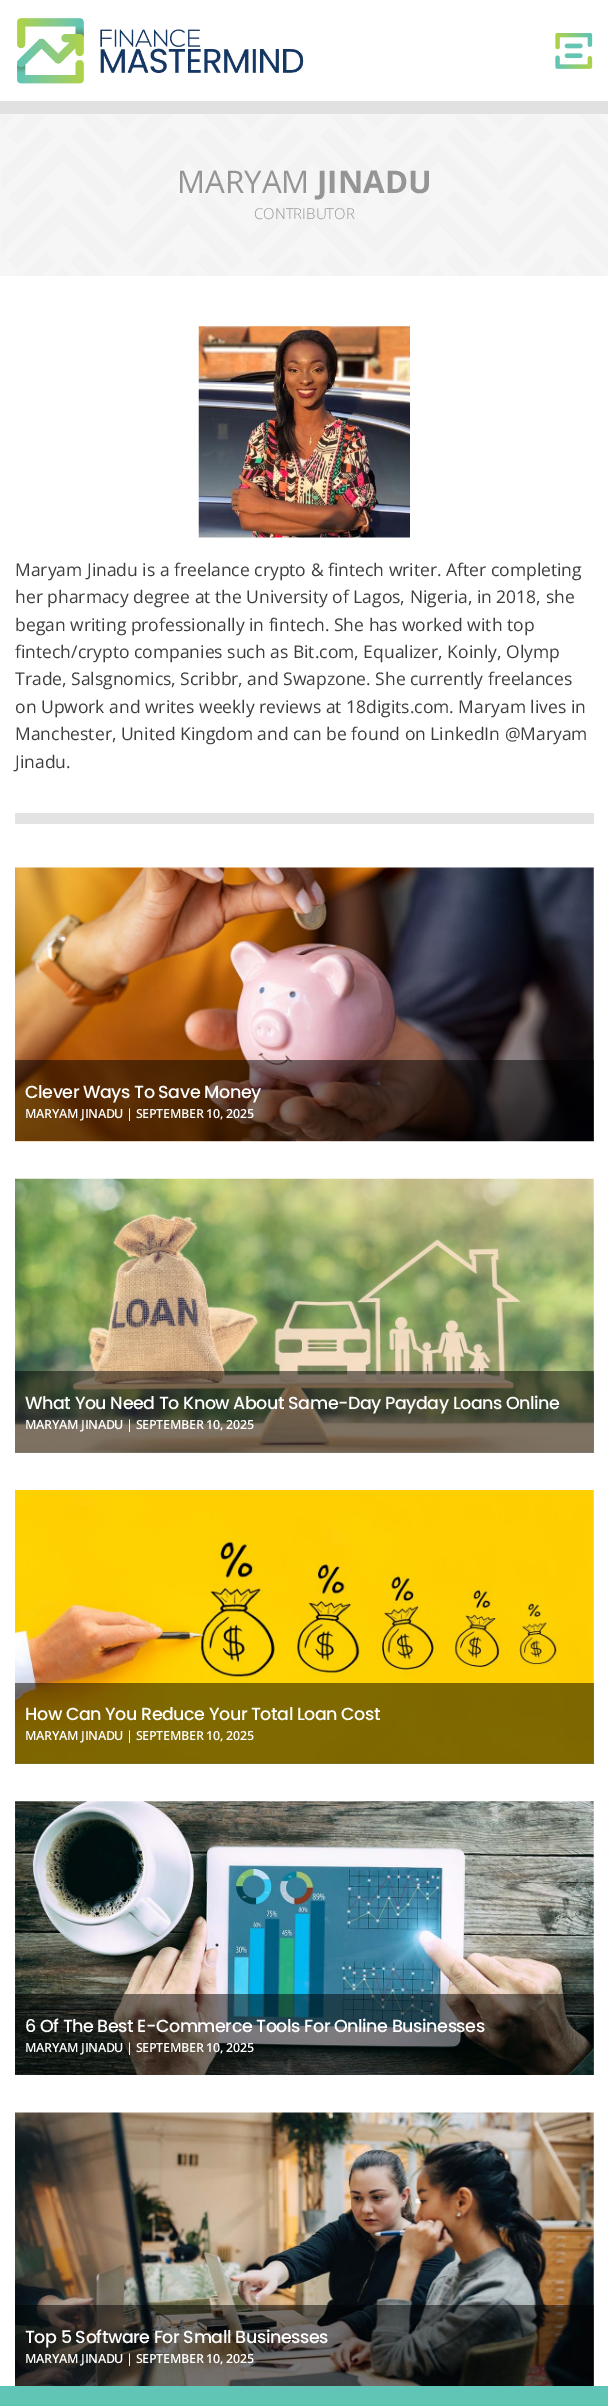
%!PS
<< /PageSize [608 2406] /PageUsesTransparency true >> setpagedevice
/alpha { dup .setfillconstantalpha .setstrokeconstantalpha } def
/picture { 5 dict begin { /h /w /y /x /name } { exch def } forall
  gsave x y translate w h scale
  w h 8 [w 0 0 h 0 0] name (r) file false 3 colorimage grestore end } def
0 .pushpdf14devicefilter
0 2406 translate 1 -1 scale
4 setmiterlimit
1 setgray
0 0 608 2406 rectfill
0.882 setgray
0 101 608 13 rectfill
(img1.rgb) 17 18 287 66 picture
(img2.rgb) 555 33 38 36 picture
0.965 setgray
0 114 608 162 rectfill
(img3.rgb) 1 115 607 161 picture
/OpenSans-Regular [31.25 0 0 -31.25 0 0] selectfont
0.584 setgray
177 193 moveto (MARYAM) show
/OpenSans-Bold [31.25 0 0 -31.25 0 0] selectfont
317 193 moveto (JINADU) show
/OpenSans-Light [15 0 0 -15 0 0] selectfont
254 219 moveto (CONTRIBUTOR) show
(img4.rgb) 198 326 212 212 picture
/OpenSans-Regular [17.5 0 0 -17.5 0 0] selectfont
0.243 setgray
15 576 moveto (Maryam Jinadu is a freelance crypto & fintech writer. After completing) show
15 603 moveto (her pharmacy degree at the University of Lagos, Nigeria, in 2018, she) show
15 631 moveto (began writing professionally in fintech. She has worked with top) show
15 658 moveto (fintech/crypto companies such as Bit.com, Equalizer, Koinly, Olymp) show
15 685 moveto (Trade, Salsgnomics, Scribbr, and Swapzone. She currently freelances) show
15 713 moveto (on Upwork and writes weekly reviews at 18digits.com. Maryam lives in) show
15 740 moveto (Manchester, United Kingdom and can be found on LinkedIn @Maryam) show
15 768 moveto (Jinadu.) show
0.89 setgray
15 813 579 11 rectfill
(img5.rgb) 15 867 579 275 picture
0.5 alpha
0 setgray
15 1060 579 81 rectfill
/Poppins-Medium [17.5 0 0 -17.5 0 0] selectfont
1 alpha
1 setgray
25 1098 moveto -0.45 0 (Clever Ways To Save Money) ashow
/OpenSans-SemiBold [12.5 0 0 -12.5 0 0] selectfont
25 1118 moveto -0.3 0 (MARYAM JINADU | SEPTEMBER 10, 2025) ashow
(img6.rgb) 15 1178 579 275 picture
0.5 alpha
0 setgray
15 1371 579 82 rectfill
/Poppins-Medium [17.5 0 0 -17.5 0 0] selectfont
1 alpha
1 setgray
25 1409 moveto -0.45 0 (What You Need To Know About Same-Day Payday Loans Online) ashow
/OpenSans-SemiBold [12.5 0 0 -12.5 0 0] selectfont
25 1429 moveto -0.3 0 (MARYAM JINADU | SEPTEMBER 10, 2025) ashow
(img7.rgb) 15 1490 579 274 picture
0.5 alpha
0 setgray
15 1683 579 81 rectfill
/Poppins-Medium [17.5 0 0 -17.5 0 0] selectfont
1 alpha
1 setgray
25 1720 moveto -0.45 0 (How Can You Reduce Your Total Loan Cost) ashow
/OpenSans-SemiBold [12.5 0 0 -12.5 0 0] selectfont
25 1740 moveto -0.3 0 (MARYAM JINADU | SEPTEMBER 10, 2025) ashow
(img8.rgb) 15 1801 579 274 picture
0.5 alpha
0 setgray
15 1994 579 81 rectfill
/Poppins-Medium [17.5 0 0 -17.5 0 0] selectfont
1 alpha
1 setgray
25 2032 moveto -0.45 0 (6 Of The Best E-Commerce Tools For Online Businesses) ashow
/OpenSans-SemiBold [12.5 0 0 -12.5 0 0] selectfont
25 2052 moveto -0.3 0 (MARYAM JINADU | SEPTEMBER 10, 2025) ashow
(img9.rgb) 15 2112 579 274 picture
0.5 alpha
0 setgray
15 2305 579 81 rectfill
/Poppins-Medium [17.5 0 0 -17.5 0 0] selectfont
1 alpha
1 setgray
25 2343 moveto -0.45 0 (Top 5 Software For Small Businesses) ashow
/OpenSans-SemiBold [12.5 0 0 -12.5 0 0] selectfont
25 2363 moveto -0.3 0 (MARYAM JINADU | SEPTEMBER 10, 2025) ashow
gsave newpath 0 2386 moveto 608 2386 lineto 608 2406 lineto 0 2406 lineto closepath clip newpath
<< /ShadingType 2 /ColorSpace /DeviceRGB /Coords [304 2386 304 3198] /Extend [true true] /Function << /FunctionType 2 /Domain [0 1] /C0 [0.376 0.773 0.718] /C1 [0.675 0.82 0.298] /N 1 >> >> shfill grestore
.poppdf14devicefilter showpage
